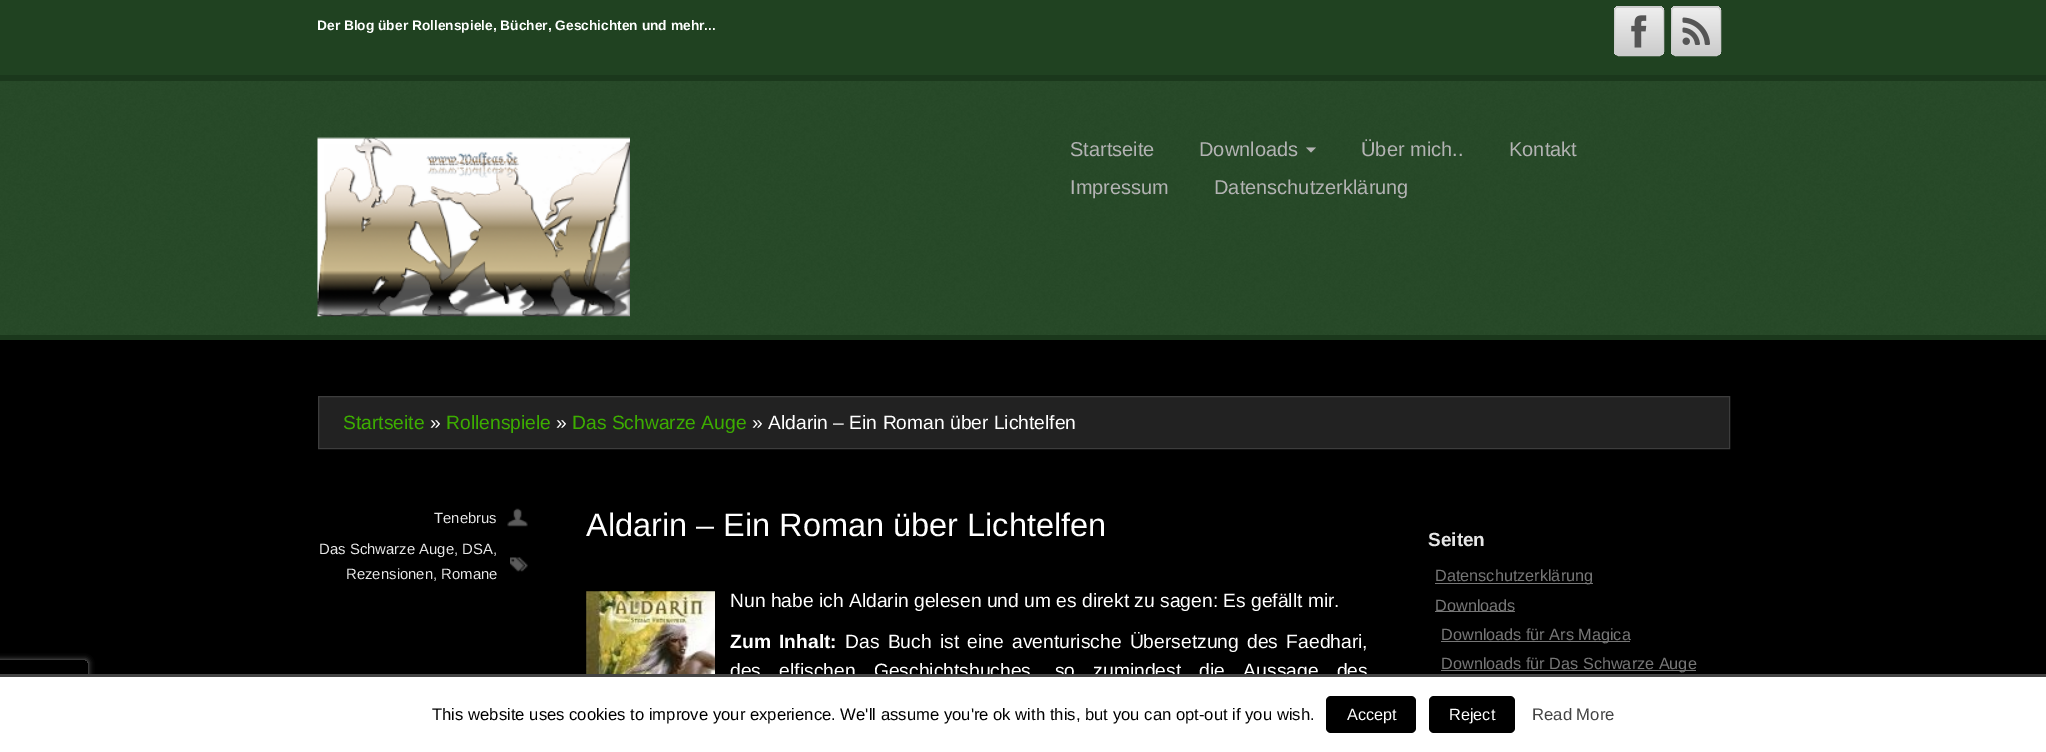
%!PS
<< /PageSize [2046 752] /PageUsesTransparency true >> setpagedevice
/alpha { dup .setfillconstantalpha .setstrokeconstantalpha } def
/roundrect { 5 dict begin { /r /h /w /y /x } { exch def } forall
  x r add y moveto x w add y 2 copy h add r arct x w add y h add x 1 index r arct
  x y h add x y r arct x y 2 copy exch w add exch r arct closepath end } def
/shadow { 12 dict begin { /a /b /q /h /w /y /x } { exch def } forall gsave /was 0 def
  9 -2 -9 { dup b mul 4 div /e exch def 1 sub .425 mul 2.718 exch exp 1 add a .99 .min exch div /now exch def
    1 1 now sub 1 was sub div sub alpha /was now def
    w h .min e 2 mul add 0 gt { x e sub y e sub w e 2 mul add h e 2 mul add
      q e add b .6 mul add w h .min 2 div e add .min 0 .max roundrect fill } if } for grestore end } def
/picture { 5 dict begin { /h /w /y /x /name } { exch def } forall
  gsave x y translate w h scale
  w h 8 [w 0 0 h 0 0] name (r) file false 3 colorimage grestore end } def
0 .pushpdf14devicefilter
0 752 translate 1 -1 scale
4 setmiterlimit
0 setgray
0 0 2046 752 rectfill
0.125 0.259 0.129 setrgbcolor
0 0 2046 75 rectfill
0.106 0.22 0.11 setrgbcolor
0 75 2046 6 rectfill
/LiberationSans-Bold [13.75 0 0 -13.75 0 0] selectfont
1 setgray
317 30 moveto (Der Blog über Rollenspiele, Bücher, Geschichten und mehr...) show
gsave
1614 6 50 50 5 roundrect clip newpath
gsave newpath 1614 6 moveto 1664 6 lineto 1664 8 lineto 1614 8 lineto closepath clip newpath
<< /ShadingType 2 /ColorSpace /DeviceRGB /Coords [1639 -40 1639 7.5] /Extend [true true] /Function << /FunctionType 2 /Domain [0 1] /C0 [0.933 0.933 0.933] /C1 [0.8 0.8 0.8] /N 1 >> >> shfill grestore
gsave newpath 1614 8 moveto 1664 8 lineto 1664 55 lineto 1614 55 lineto closepath clip newpath
<< /ShadingType 2 /ColorSpace /DeviceRGB /Coords [1639 7.5 1639 55] /Extend [true true] /Function << /FunctionType 2 /Domain [0 1] /C0 [0.933 0.933 0.933] /C1 [0.8 0.8 0.8] /N 1 >> >> shfill grestore
grestore
0.8 setgray
1614.5 6.5 49 49 4.5 roundrect stroke
(img1.rgb) 1631 15 16 33 picture
gsave
1671 6 50 50 5 roundrect clip newpath
gsave newpath 1671 6 moveto 1721 6 lineto 1721 8 lineto 1671 8 lineto closepath clip newpath
<< /ShadingType 2 /ColorSpace /DeviceRGB /Coords [1696 -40 1696 7.5] /Extend [true true] /Function << /FunctionType 2 /Domain [0 1] /C0 [0.933 0.933 0.933] /C1 [0.8 0.8 0.8] /N 1 >> >> shfill grestore
gsave newpath 1671 8 moveto 1721 8 lineto 1721 55 lineto 1671 55 lineto closepath clip newpath
<< /ShadingType 2 /ColorSpace /DeviceRGB /Coords [1696 7.5 1696 55] /Extend [true true] /Function << /FunctionType 2 /Domain [0 1] /C0 [0.933 0.933 0.933] /C1 [0.8 0.8 0.8] /N 1 >> >> shfill grestore
grestore
1671.5 6.5 49 49 4.5 roundrect stroke
(img2.rgb) 1682 17 28 28 picture
(img3.rgb) 0 81 2046 254 picture
0.106 0.22 0.11 setrgbcolor
0 335 2046 5 rectfill
(img4.rgb) 317 137 313 180 picture
/LiberationSans-Regular [20 0 0 -20 0 0] selectfont
0.702 setgray
1070 156 moveto (Startseite) show
1199 156 moveto (Downloads) show
newpath 1306 147.5 moveto 1316 147.5 lineto 1311 152.5 lineto closepath fill
1361 156 moveto (Über mich..) show
1509 156 moveto (Kontakt) show
1070 194 moveto (Impressum) show
1214 194 moveto (Datenschutzerklärung) show
0.133 setgray
newpath 318.5 396.5 moveto 1729.5 396.5 lineto 1729.5 448.5 lineto 318.5 448.5 lineto closepath gsave fill grestore
0.239 setgray
stroke
/LiberationSans-Regular [19.25 0 0 -19.25 0 0] selectfont
0.235 0.678 0 setrgbcolor
343 429 moveto (Startseite) show
1 setgray
430 429 moveto (») show
0.235 0.678 0 setrgbcolor
446 429 moveto (Rollenspiele) show
1 setgray
556 429 moveto (») show
0.235 0.678 0 setrgbcolor
572 429 moveto (Das Schwarze Auge) show
1 setgray
752 429 moveto (» Aldarin – Ein Roman über Lichtelfen) show
(img5.rgb) 507 508 21 19 picture
/LiberationSans-Regular [14.9 0 0 -14.9 0 0] selectfont
0.902 setgray
434 523 moveto (Tenebrus) show
(img6.rgb) 510 557 18 15 picture
319 554 moveto (Das Schwarze Auge, DSA,) show
346 579 moveto (Rezensionen, Romane) show
/LiberationSans-Regular [32.5 0 0 -32.5 0 0] selectfont
1 setgray
586 536 moveto (Aldarin – Ein Roman über Lichtelfen) show
(img7.rgb) 586 591 129 83 picture
/LiberationSans-Regular [19.25 0 0 -19.25 0 0] selectfont
730 607 moveto (Nun habe ich Aldarin gelesen und um es direkt zu sagen: Es gefällt mir.) show
/LiberationSans-Bold [19.25 0 0 -19.25 0 0] selectfont
730 648 moveto 3 0 32 (Zum Inhalt:) widthshow
/LiberationSans-Regular [19.25 0 0 -19.25 0 0] selectfont
845 648 moveto 3 0 32 (Das Buch ist eine aventurische Übersetzung des Faedhari,) widthshow
730 677 moveto 13 0 32 (des elfischen Geschichtsbuches, so zumindest die Aussage des) widthshow
gsave
newpath 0 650 moveto 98 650 lineto 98 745 lineto 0 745 lineto closepath -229.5 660 moveto 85.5 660 lineto 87 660 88 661 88 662.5 curveto 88 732.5 lineto 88 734 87 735 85.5 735 curveto -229.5 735 lineto -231 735 -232 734 -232 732.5 curveto -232 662.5 lineto -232 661 -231 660 -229.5 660 curveto closepath eoclip newpath
0.502 setgray
-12 660 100 75 2.5 3 1 shadow
grestore
/LiberationSans-Bold [19 0 0 -19 0 0] selectfont
0.902 setgray
1428 546 moveto (Seiten) show
0.467 setgray
1435 583 158 1 rectfill
/LiberationSans-Regular [16.25 0 0 -16.25 0 0] selectfont
1435 581 moveto (Datenschutzerklärung) show
1435 611 80 1 rectfill
1435 611 moveto (Downloads) show
1441 641 189 1 rectfill
1441 640 moveto (Downloads für Ars Magica) show
1441 670 255 1 rectfill
1441 669 moveto (Downloads für Das Schwarze Auge) show
1 setgray
0 677 2046 75 rectfill
0.267 setgray
0 674 2046 3 rectfill
/LiberationSans-Regular [16.67 0 0 -16.67 0 0] selectfont
0 setgray
432 720 moveto (This website uses cookies to improve your experience. We'll assume you're ok with this, but you can opt-out if you wish.) show
1326 696 90 37 5 roundrect fill
/LiberationSans-Regular [16.25 0 0 -16.25 0 0] selectfont
1 setgray
1347 720 moveto (Accept) show
0 setgray
1429 696 86 37 5 roundrect fill
1 setgray
1449 720 moveto (Reject) show
/LiberationSans-Regular [16.67 0 0 -16.67 0 0] selectfont
0.267 setgray
1532 720 moveto (Read More) show
.poppdf14devicefilter showpage
